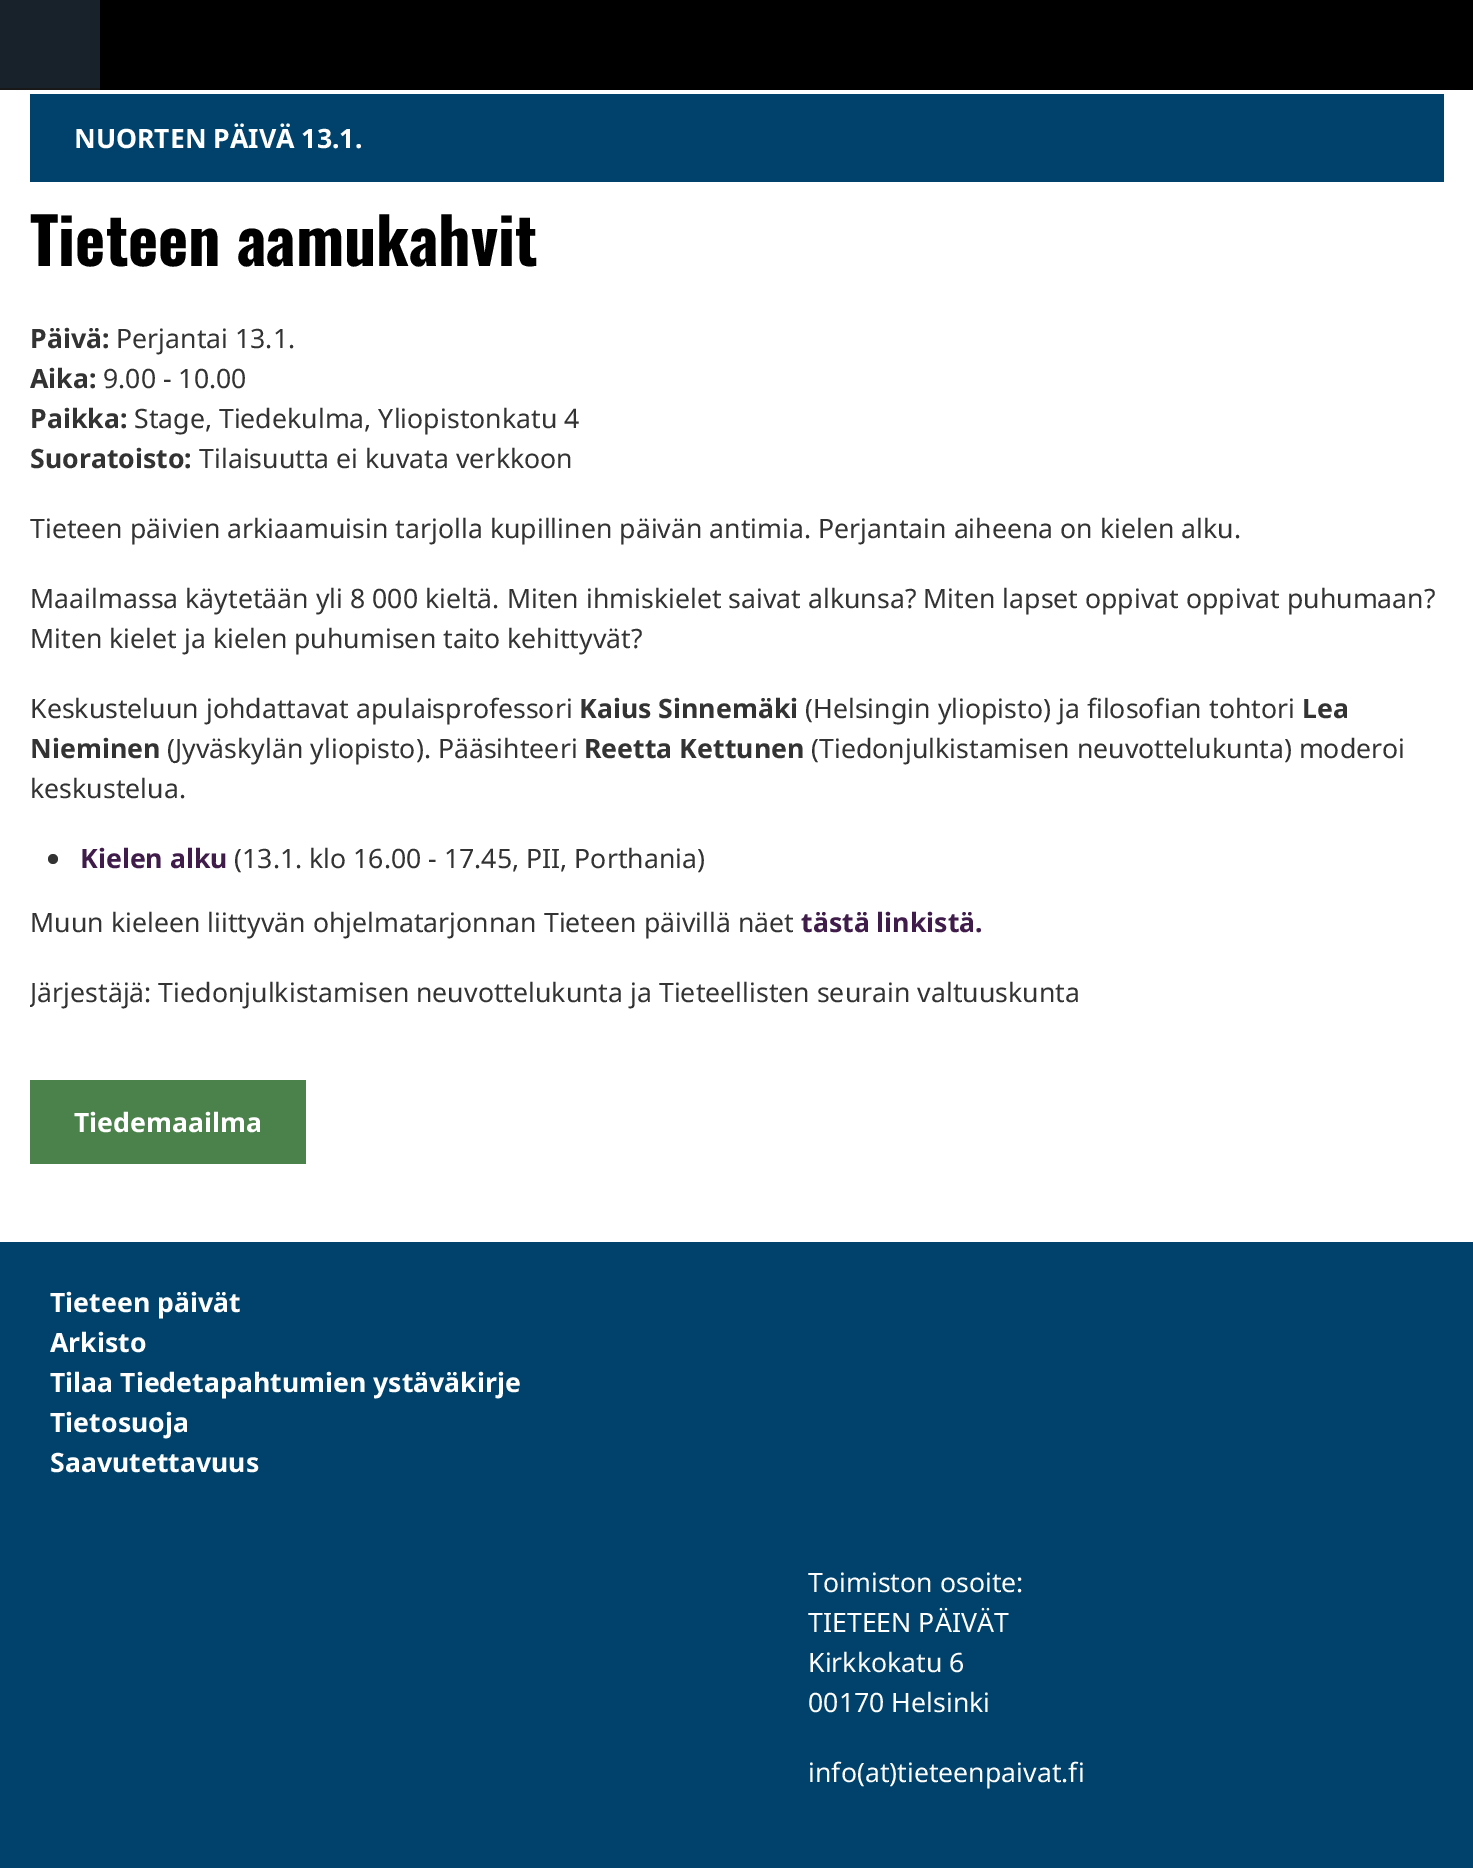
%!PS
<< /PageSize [1473 1868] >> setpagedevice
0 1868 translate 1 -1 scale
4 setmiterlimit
1 setgray
0 0 1473 1868 rectfill
0 setgray
100 0 1373 90 rectfill
0.094 0.133 0.169 setrgbcolor
0 0 100 88 rectfill
0.094 setgray
0 88 100 2 rectfill
0 0.259 0.42 setrgbcolor
30 94 1414 88 rectfill
/NotoSans-Bold [26.67 0 0 -26.67 0 0] selectfont
1 setgray
74 148 moveto (NUORTEN PÄIVÄ 13.1.) show
/Oswald-Bold [64 0 0 -64 0 0] selectfont
0 setgray
30 266 moveto (Tieteen aamukahvit) show
/NotoSans-Bold [26.67 0 0 -26.67 0 0] selectfont
0.2 setgray
30 348 moveto (Päivä:) show
/NotoSans-Regular [26.67 0 0 -26.67 0 0] selectfont
116 348 moveto (Perjantai 13.1.) show
/NotoSans-Bold [26.67 0 0 -26.67 0 0] selectfont
30 388 moveto (Aika:) show
/NotoSans-Regular [26.67 0 0 -26.67 0 0] selectfont
103 388 moveto (9.00 - 10.00) show
/NotoSans-Bold [26.67 0 0 -26.67 0 0] selectfont
30 428 moveto (Paikka:) show
/NotoSans-Regular [26.67 0 0 -26.67 0 0] selectfont
134 428 moveto (Stage, Tiedekulma, Yliopistonkatu 4) show
/NotoSans-Bold [26.67 0 0 -26.67 0 0] selectfont
30 468 moveto (Suoratoisto:) show
/NotoSans-Regular [26.67 0 0 -26.67 0 0] selectfont
199 468 moveto (Tilaisuutta ei kuvata verkkoon) show
30 538 moveto (Tieteen päivien arkiaamuisin tarjolla kupillinen päivän antimia. Perjantain aiheena on kielen alku.) show
30 608 moveto (Maailmassa käytetään yli 8 000 kieltä. Miten ihmiskielet saivat alkunsa? Miten lapset oppivat oppivat puhumaan?) show
30 648 moveto (Miten kielet ja kielen puhumisen taito kehittyvät?) show
30 718 moveto (Keskusteluun johdattavat apulaisprofessori) show
/NotoSans-Bold [26.67 0 0 -26.67 0 0] selectfont
579 718 moveto (Kaius Sinnemäki) show
/NotoSans-Regular [26.67 0 0 -26.67 0 0] selectfont
805 718 moveto (\(Helsingin yliopisto\) ja filosofian tohtori) show
/NotoSans-Bold [26.67 0 0 -26.67 0 0] selectfont
1302 718 moveto (Lea) show
30 758 moveto (Nieminen) show
/NotoSans-Regular [26.67 0 0 -26.67 0 0] selectfont
167 758 moveto (\(Jyväskylän yliopisto\). Pääsihteeri) show
/NotoSans-Bold [26.67 0 0 -26.67 0 0] selectfont
584 758 moveto (Reetta Kettunen) show
/NotoSans-Regular [26.67 0 0 -26.67 0 0] selectfont
811 758 moveto (\(Tiedonjulkistamisen neuvottelukunta\) moderoi) show
30 798 moveto (keskustelua.) show
newpath 53 859 5 0 360 arc closepath fill
/NotoSans-Bold [26.67 0 0 -26.67 0 0] selectfont
0.251 0.11 0.29 setrgbcolor
80 868 moveto (Kielen alku) show
/NotoSans-Regular [26.67 0 0 -26.67 0 0] selectfont
0.2 setgray
234 868 moveto (\(13.1. klo 16.00 - 17.45, PII, Porthania\)) show
30 932 moveto (Muun kieleen liittyvän ohjelmatarjonnan Tieteen päivillä näet) show
/NotoSans-Bold [26.67 0 0 -26.67 0 0] selectfont
0.251 0.11 0.29 setrgbcolor
801 932 moveto (tästä linkistä.) show
gsave
30 0 1414 1222 rectclip
/NotoSans-Regular [26.67 0 0 -26.67 0 0] selectfont
0.2 setgray
30 1002 moveto (Järjestäjä: Tiedonjulkistamisen neuvottelukunta ja Tieteellisten seurain valtuuskunta) show
grestore
0.294 0.506 0.294 setrgbcolor
30 1080 276 84 rectfill
1 setgray
74 1132 moveto (Tiedemaailma) show
0 0.259 0.42 setrgbcolor
0 1242 1473 626 rectfill
1 setgray
50 1312 moveto (Tieteen päivät) show
50 1352 moveto (Arkisto) show
50 1392 moveto (Tilaa Tiedetapahtumien ystäväkirje) show
50 1432 moveto (Tietosuoja) show
50 1472 moveto (Saavutettavuus) show
/NotoSans-Regular [26.67 0 0 -26.67 0 0] selectfont
808 1592 moveto (Toimiston osoite:) show
808 1632 moveto (TIETEEN PÄIVÄT) show
808 1672 moveto (Kirkkokatu 6) show
808 1712 moveto (00170 Helsinki) show
808 1782 moveto (info\(at\)tieteenpaivat.fi) show
showpage
